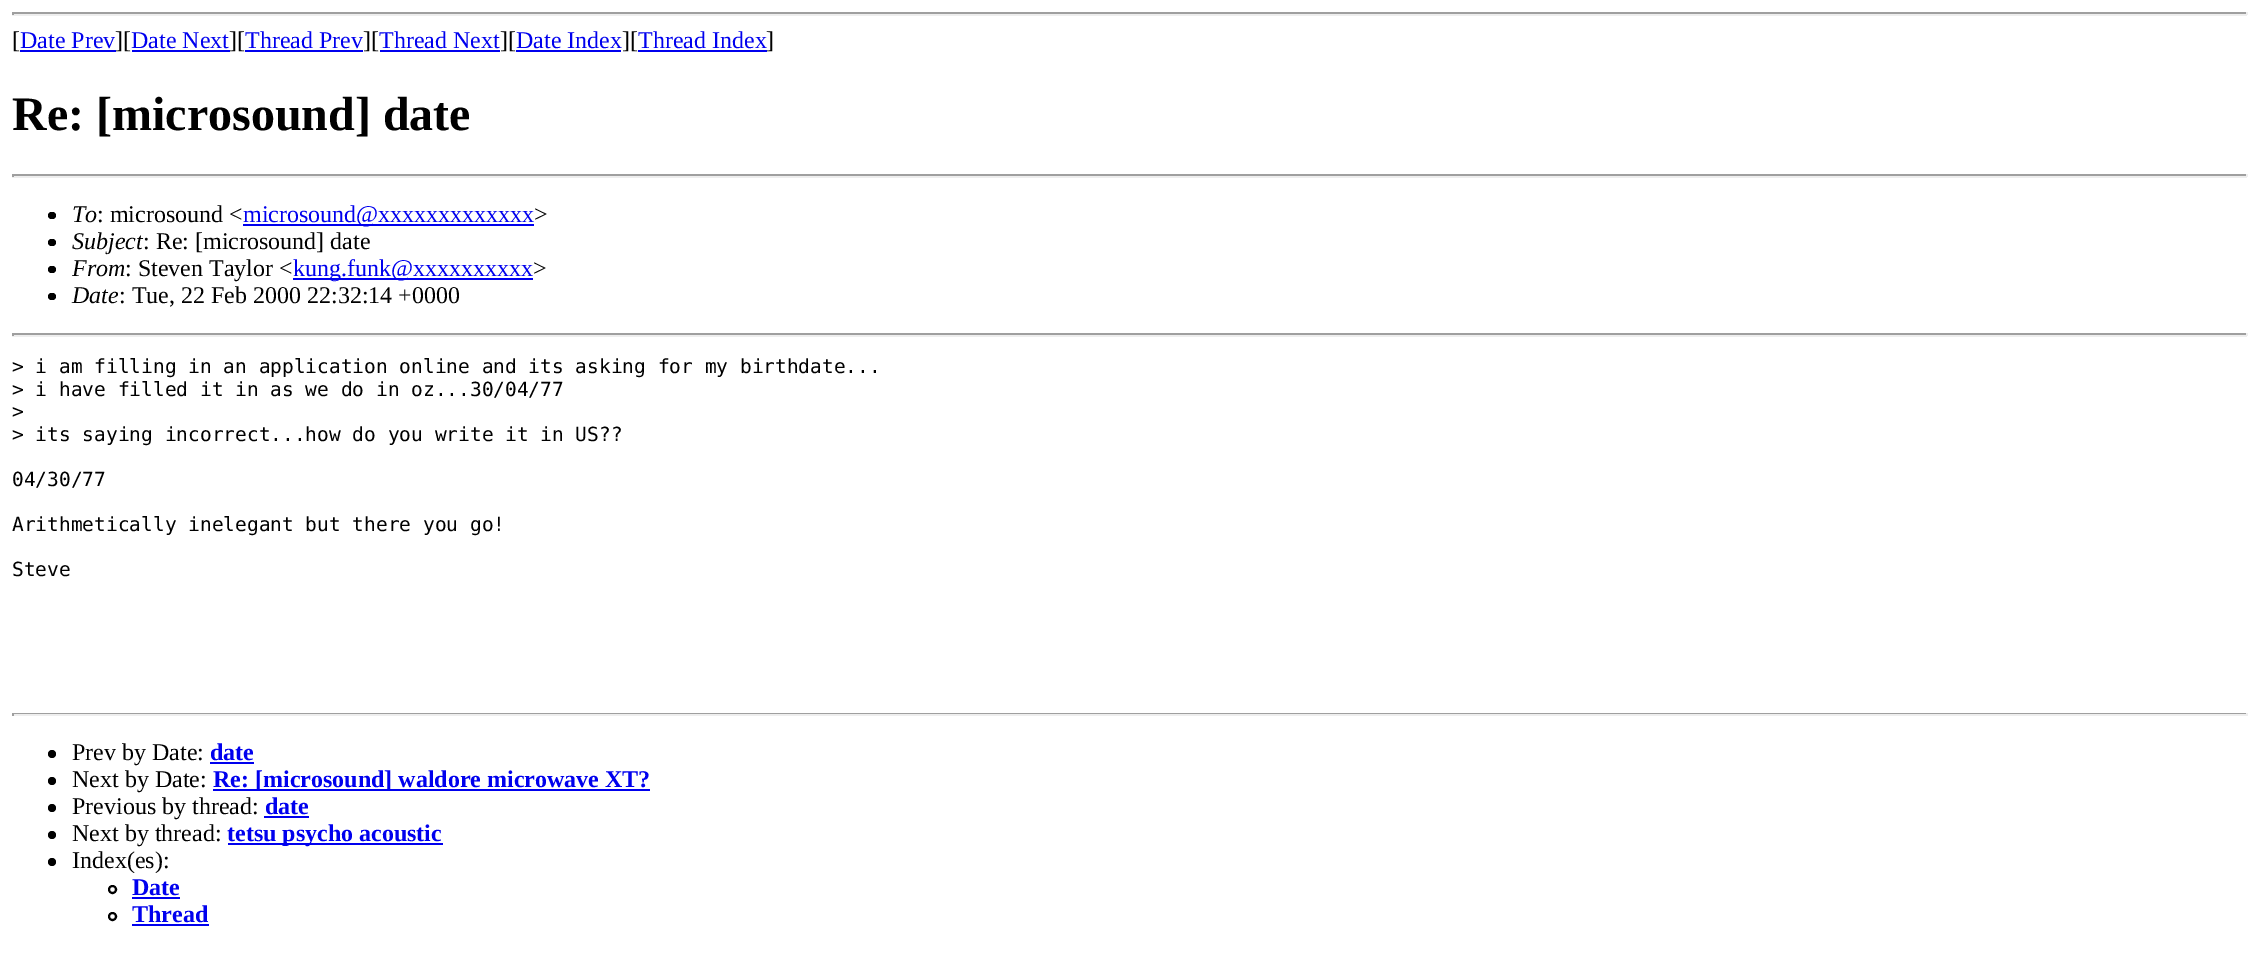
%!PS
<< /PageSize [2259 957] >> setpagedevice
/roundrect { 5 dict begin { /r /h /w /y /x } { exch def } forall
  x r add y moveto x w add y 2 copy h add r arct x w add y h add x 1 index r arct
  x y h add x y r arct x y 2 copy exch w add exch r arct closepath end } def
0 957 translate 1 -1 scale
4 setmiterlimit
1 setgray
0 0 2259 957 rectfill
0.624 setgray
12 12 2235 2 rectfill
0.933 setgray
2246 12 2 3 rectfill
12 14 2235 2 rectfill
0.624 setgray
12 12 2 3 rectfill
/LiberationSerif-Regular [24 0 0 -24 0 0] selectfont
0 setgray
12 48 moveto ([) show
0 0 0.933 setrgbcolor
20 48 moveto (Date Prev) show
20 50 96 2 rectfill
0 setgray
115 48 moveto (][) show
0 0 0.933 setrgbcolor
131 48 moveto (Date Next) show
132 50 98 2 rectfill
0 setgray
229 48 moveto (][) show
0 0 0.933 setrgbcolor
245 48 moveto (Thread Prev) show
245 50 118 2 rectfill
0 setgray
363 48 moveto (][) show
0 0 0.933 setrgbcolor
379 48 moveto (Thread Next) show
380 50 120 2 rectfill
0 setgray
500 48 moveto (][) show
0 0 0.933 setrgbcolor
516 48 moveto (Date Index) show
516 50 105 2 rectfill
0 setgray
622 48 moveto (][) show
0 0 0.933 setrgbcolor
638 48 moveto (Thread Index) show
638 50 129 2 rectfill
0 setgray
766 48 moveto (]) show
/LiberationSerif-Bold [48 0 0 -48 0 0] selectfont
12 130 moveto (Re: [microsound] date) show
0.624 setgray
12 174 2235 2 rectfill
0.933 setgray
2246 174 2 3 rectfill
12 176 2235 2 rectfill
0.624 setgray
12 174 2 3 rectfill
0 setgray
48 212 8 7 3.5 roundrect fill
/LiberationSerif-Italic [24 0 0 -24 0 0] selectfont
72 222 moveto (To) show
/LiberationSerif-Regular [24 0 0 -24 0 0] selectfont
97 222 moveto (: microsound <) show
0 0 0.933 setrgbcolor
243 224 291 2 rectfill
243 222 moveto (microsound@xxxxxxxxxxxxx) show
0 setgray
534 222 moveto (>) show
48 239 8 7 3.5 roundrect fill
/LiberationSerif-Italic [24 0 0 -24 0 0] selectfont
72 249 moveto (Subject) show
/LiberationSerif-Regular [24 0 0 -24 0 0] selectfont
143 249 moveto (: Re: [microsound] date) show
48 266 8 7 3.5 roundrect fill
/LiberationSerif-Italic [24 0 0 -24 0 0] selectfont
72 276 moveto (From) show
/LiberationSerif-Regular [24 0 0 -24 0 0] selectfont
125 276 moveto (: Steven Taylor <) show
0 0 0.933 setrgbcolor
293 278 240 2 rectfill
293 276 moveto (kung.funk@xxxxxxxxxx) show
0 setgray
533 276 moveto (>) show
48 293 8 7 3.5 roundrect fill
/LiberationSerif-Italic [24 0 0 -24 0 0] selectfont
72 303 moveto (Date) show
/LiberationSerif-Regular [24 0 0 -24 0 0] selectfont
119 303 moveto (: Tue, 22 Feb 2000 22:32:14 +0000) show
0.624 setgray
12 333 2235 2 rectfill
0.933 setgray
2246 333 2 3 rectfill
12 335 2235 2 rectfill
0.624 setgray
12 333 2 3 rectfill
/DejaVuSansMono-Regular [19.5 0 0 -19.5 0 0] selectfont
0 setgray
12 373 moveto (> i am filling in an application online and its asking for my birthdate...) show
12 396 moveto (> i have filled it in as we do in oz...30/04/77) show
12 418 moveto (>) show
12 441 moveto (> its saying incorrect...how do you write it in US??) show
12 486 moveto (04/30/77) show
12 531 moveto (Arithmetically inelegant but there you go!) show
12 576 moveto (Steve) show
0.624 setgray
12 713 2235 1 rectfill
0.933 setgray
2246 713 2 3 rectfill
12 714 2235 2 rectfill
0.624 setgray
12 713 2 3 rectfill
0 setgray
newpath 52 754 4 0 360 arc closepath fill
/LiberationSerif-Regular [24 0 0 -24 0 0] selectfont
72 760 moveto (Prev by Date:) show
/LiberationSerif-Bold [24 0 0 -24 0 0] selectfont
0 0 0.933 setrgbcolor
210 760 moveto (date) show
210 762 44 2 rectfill
0 setgray
newpath 52 781 4 0 360 arc closepath fill
/LiberationSerif-Regular [24 0 0 -24 0 0] selectfont
72 787 moveto (Next by Date:) show
0 0 0.933 setrgbcolor
213 789 437 2 rectfill
/LiberationSerif-Bold [24 0 0 -24 0 0] selectfont
213 787 moveto (Re: [microsound] waldore microwave XT?) show
0 setgray
newpath 52 808 4 0 360 arc closepath fill
/LiberationSerif-Regular [24 0 0 -24 0 0] selectfont
72 814 moveto (Previous by thread:) show
/LiberationSerif-Bold [24 0 0 -24 0 0] selectfont
0 0 0.933 setrgbcolor
265 814 moveto (date) show
264 816 45 2 rectfill
0 setgray
newpath 52 835 4 0 360 arc closepath fill
/LiberationSerif-Regular [24 0 0 -24 0 0] selectfont
72 841 moveto (Next by thread:) show
0 0 0.933 setrgbcolor
228 843 215 2 rectfill
/LiberationSerif-Bold [24 0 0 -24 0 0] selectfont
227 841 moveto (tetsu psycho acoustic) show
0 setgray
newpath 52 862 4 0 360 arc closepath fill
/LiberationSerif-Regular [24 0 0 -24 0 0] selectfont
72 868 moveto (Index\(es\):) show
2 setlinewidth
newpath 112.5 889.5 3.5 0 360 arc closepath stroke
/LiberationSerif-Bold [24 0 0 -24 0 0] selectfont
0 0 0.933 setrgbcolor
132 895 moveto (Date) show
132 897 48 2 rectfill
0 setgray
newpath 112.5 916.5 3.5 0 360 arc closepath stroke
0 0 0.933 setrgbcolor
132 922 moveto (Thread) show
132 924 77 2 rectfill
showpage
